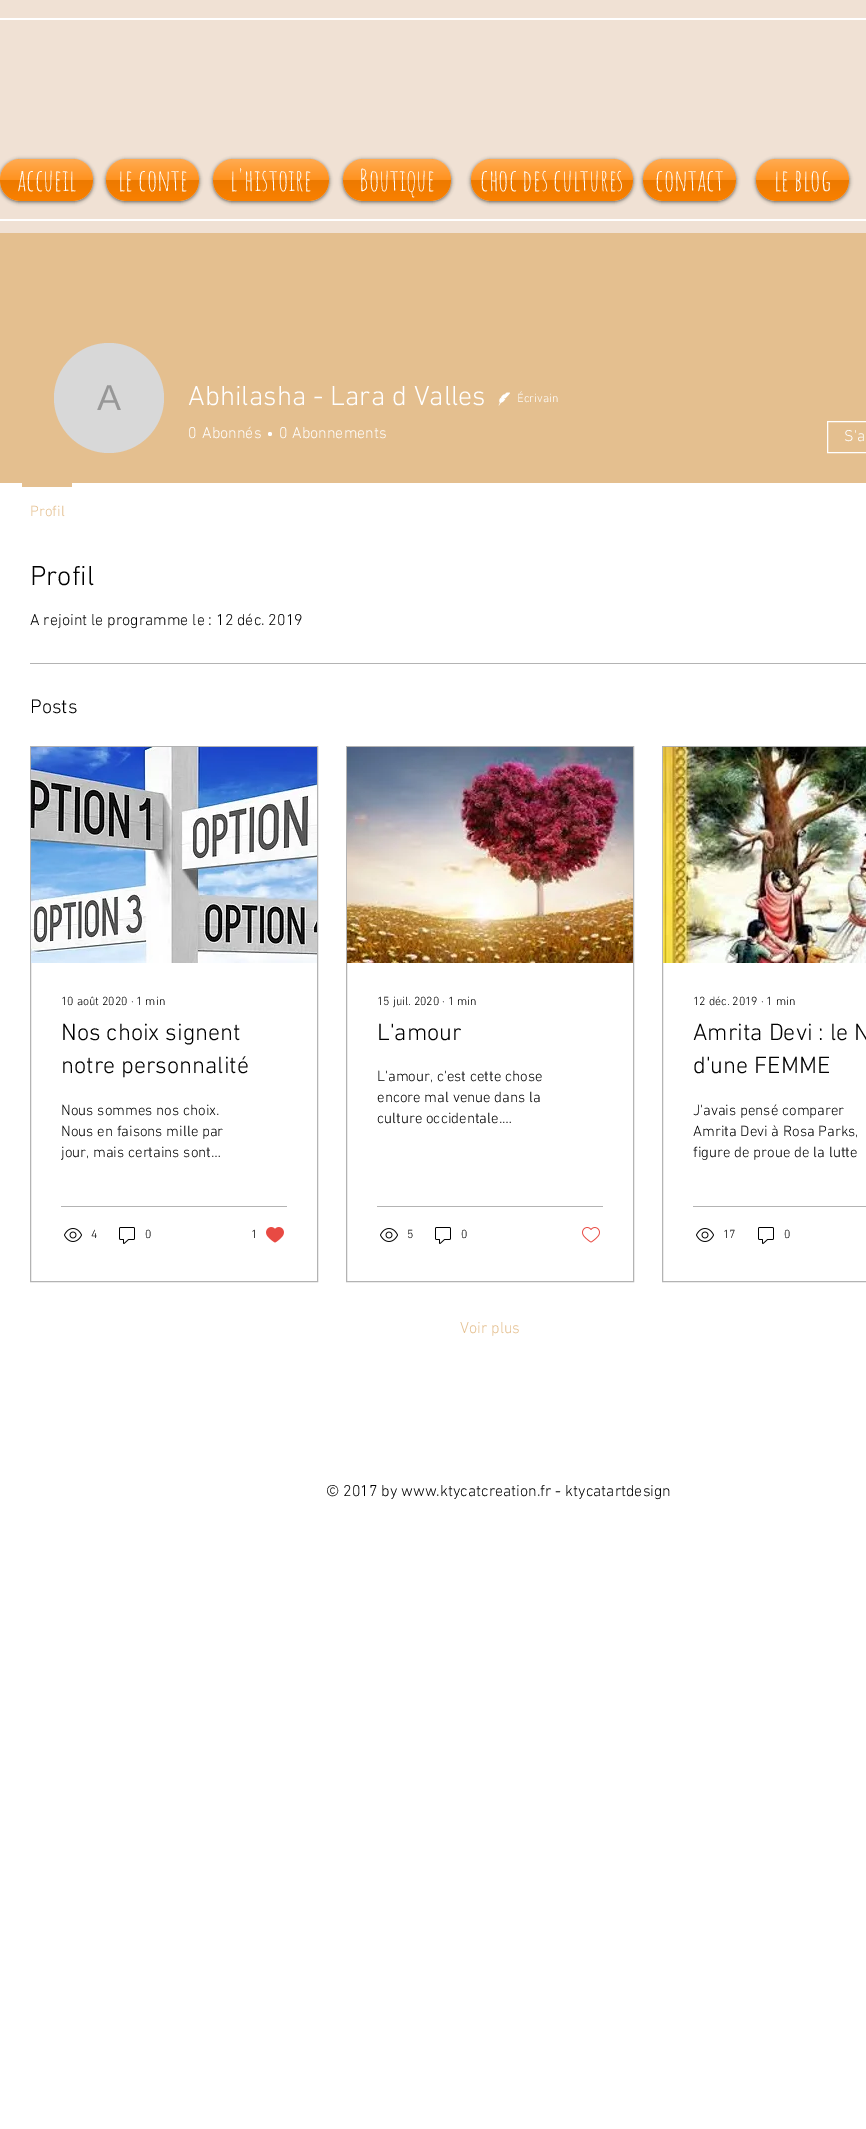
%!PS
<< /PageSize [866 2129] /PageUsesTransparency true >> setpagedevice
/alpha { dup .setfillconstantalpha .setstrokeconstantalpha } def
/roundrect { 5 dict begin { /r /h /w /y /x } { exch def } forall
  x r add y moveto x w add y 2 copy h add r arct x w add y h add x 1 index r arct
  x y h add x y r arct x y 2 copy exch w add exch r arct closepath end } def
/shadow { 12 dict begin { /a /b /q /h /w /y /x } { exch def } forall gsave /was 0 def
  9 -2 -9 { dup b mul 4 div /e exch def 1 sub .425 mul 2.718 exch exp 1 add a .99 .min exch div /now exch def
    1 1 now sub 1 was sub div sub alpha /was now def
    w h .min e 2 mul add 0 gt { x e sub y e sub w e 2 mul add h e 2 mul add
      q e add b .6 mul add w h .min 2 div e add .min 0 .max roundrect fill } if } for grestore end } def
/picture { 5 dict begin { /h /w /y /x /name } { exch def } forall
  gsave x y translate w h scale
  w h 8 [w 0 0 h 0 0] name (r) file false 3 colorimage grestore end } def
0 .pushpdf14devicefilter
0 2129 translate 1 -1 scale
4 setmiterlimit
1 setgray
0 0 866 2129 rectfill
0.941 0.882 0.831 setrgbcolor
0 0 866 233 rectfill
1 setgray
0 18 866 2 rectfill
0 219 866 2 rectfill
0 setgray
0 160 93 42 20 2 0.6 shadow
1 0.514 0 setrgbcolor
0 159 93 42 20 roundrect fill
(img1.rgb) 0 159 93 42 picture
/AmaticSC-Regular [30 0 0 -30 0 0] selectfont
1 setgray
17 191 moveto (accueil) show
0 setgray
106 160 93 42 20 2 0.6 shadow
1 0.514 0 setrgbcolor
106 159 93 42 20 roundrect fill
(img2.rgb) 106 159 93 42 picture
1 setgray
118 191 moveto (le conte) show
0 setgray
213 160 116 42 20 2 0.6 shadow
1 0.514 0 setrgbcolor
213 159 116 42 20 roundrect fill
(img3.rgb) 213 159 116 42 picture
1 setgray
230 191 moveto (l'histoire) show
0 setgray
343 160 108 42 20 2 0.6 shadow
1 0.514 0 setrgbcolor
343 159 108 42 20 roundrect fill
(img4.rgb) 343 159 108 42 picture
1 setgray
359 191 moveto (Boutique) show
0 setgray
471 160 162 42 20 2 0.6 shadow
1 0.514 0 setrgbcolor
471 159 162 42 20 roundrect fill
(img5.rgb) 471 159 162 42 picture
1 setgray
480 191 moveto (choc des cultures) show
0 setgray
643 160 93 42 20 2 0.6 shadow
1 0.514 0 setrgbcolor
643 159 93 42 20 roundrect fill
(img2.rgb) 643 159 93 42 picture
1 setgray
655 191 moveto (contact) show
0 setgray
756 160 93 42 20 2 0.6 shadow
1 0.514 0 setrgbcolor
756 159 93 42 20 roundrect fill
(img6.rgb) 756 159 93 42 picture
1 setgray
774 191 moveto (le blog) show
0.894 0.749 0.561 setrgbcolor
0 233 866 250 rectfill
0.847 setgray
newpath 109 398 55 0 360 arc closepath fill
/LiberationSans-Regular [36 0 0 -36 0 0] selectfont
0.592 setgray
97 410 moveto (A) show
/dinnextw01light-Light [28 0 0 -28 0 0] selectfont
1 setgray
188 405 moveto (Abhilasha - Lara d Valles) show
(img7.rgb) 498 392 12 14 picture
/dinnextw01light-Light [12 0 0 -12 0 0] selectfont
517 402 moveto (Écrivain) show
/dinnextw01light-Light [16 0 0 -16 0 0] selectfont
188 438 moveto (0) show
202 438 moveto (Abonnés) show
newpath 270 434 2 0 360 arc closepath fill
279 438 moveto (0) show
292 438 moveto (Abonnements) show
827.5 421.5 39 31 rectstroke
844 441 moveto (S'a) show
0.894 0.749 0.561 setrgbcolor
22 483 50 4 rectfill
/dinnextw01light-Light [15 0 0 -15 0 0] selectfont
30 516 moveto (Profil) show
/dinnextw01light-Light [28 0 0 -28 0 0] selectfont
0 setgray
30 585 moveto (Profil) show
/dinnextw01light-Light [16 0 0 -16 0 0] selectfont
30 625 moveto (A rejoint le programme le : 12 déc. 2019) show
0.702 setgray
30 663 836 1 rectfill
/dinnextw01light-Light [20 0 0 -20 0 0] selectfont
0 setgray
30 713 moveto (Posts) show
0.702 setgray
30.5 746.5 287 535 rectstroke
(img8.rgb) 31 747 286 216 picture
/dinnextw01light-Light [12 0 0 -12 0 0] selectfont
0 setgray
61 1005 moveto (10 août 2020 ∙ 1 min) show
/dinnextw01light-Light [24 0 0 -24 0 0] selectfont
61 1040 moveto (Nos choix signent) show
61 1073 moveto (notre personnalité) show
/dinnextw01light-Light [15 0 0 -15 0 0] selectfont
61 1115 moveto (Nous sommes nos choix.) show
61 1136 moveto (Nous en faisons mille par) show
61 1157 moveto (jour, mais certains sont…) show
0.702 setgray
61 1206 226 1 rectfill
(img9.rgb) 64 1228 18 14 picture
/dinnextw01light-Light [12 0 0 -12 0 0] selectfont
0 setgray
91 1238 moveto (4) show
(img10.rgb) 119 1227 16 17 picture
145 1238 moveto (0) show
251 1238 moveto (1) show
(img11.rgb) 266 1227 18 16 picture
0.702 setgray
346.5 746.5 287 535 rectstroke
(img12.rgb) 347 747 286 216 picture
0 setgray
377 1005 moveto (15 juil. 2020 ∙ 1 min) show
/dinnextw01light-Light [24 0 0 -24 0 0] selectfont
377 1040 moveto (L'amour) show
/dinnextw01light-Light [15 0 0 -15 0 0] selectfont
377 1081 moveto (L'amour, c'est cette chose) show
377 1102 moveto (encore mal venue dans la) show
377 1123 moveto (culture occidentale.…) show
0.702 setgray
377 1206 226 1 rectfill
(img9.rgb) 380 1228 18 14 picture
/dinnextw01light-Light [12 0 0 -12 0 0] selectfont
0 setgray
407 1238 moveto (5) show
(img10.rgb) 435 1227 16 17 picture
461 1238 moveto (0) show
(img13.rgb) 582 1227 18 16 picture
0.702 setgray
662.5 746.5 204 535 rectstroke
(img14.rgb) 663 747 203 216 picture
0 setgray
693 1005 moveto (12 déc. 2019 ∙ 1 min) show
/dinnextw01light-Light [24 0 0 -24 0 0] selectfont
693 1040 moveto (Amrita Devi : le N) show
693 1073 moveto (d'une FEMME) show
/dinnextw01light-Light [15 0 0 -15 0 0] selectfont
693 1115 moveto (J'avais pensé comparer) show
693 1136 moveto (Amrita Devi à Rosa Parks,) show
693 1157 moveto (figure de proue de la lutte) show
0.702 setgray
693 1206 173 1 rectfill
(img9.rgb) 696 1228 18 14 picture
/dinnextw01light-Light [12 0 0 -12 0 0] selectfont
0 setgray
723 1238 moveto (17) show
(img10.rgb) 758 1227 16 17 picture
784 1238 moveto (0) show
/dinnextw01light-Light [16 0 0 -16 0 0] selectfont
0.894 0.749 0.561 setrgbcolor
460 1333 moveto (Voir plus) show
0 setgray
326 1496 moveto (© 2017 by www.ktycatcreation.fr - ktycatartdesign) show
.poppdf14devicefilter showpage
